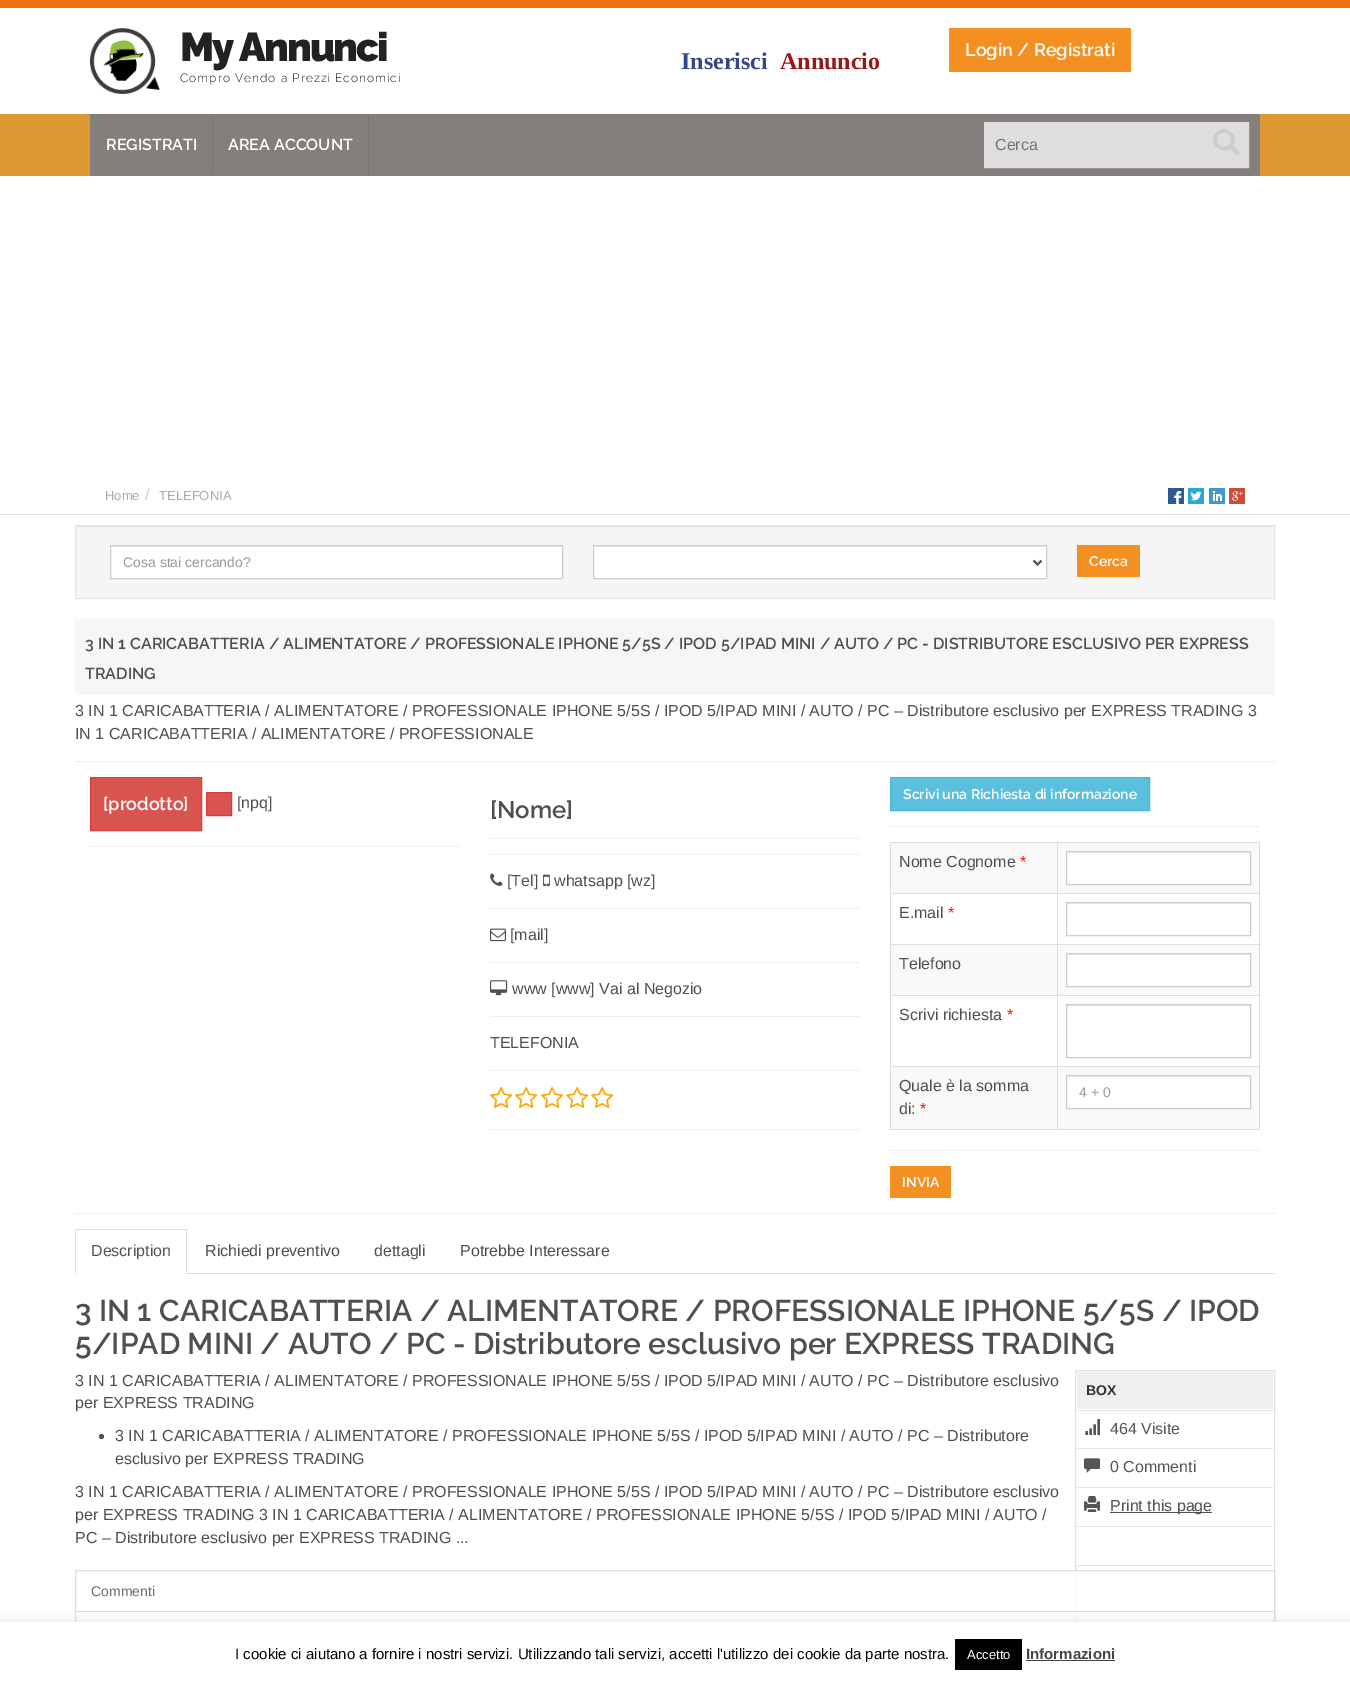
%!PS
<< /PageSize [1350 1682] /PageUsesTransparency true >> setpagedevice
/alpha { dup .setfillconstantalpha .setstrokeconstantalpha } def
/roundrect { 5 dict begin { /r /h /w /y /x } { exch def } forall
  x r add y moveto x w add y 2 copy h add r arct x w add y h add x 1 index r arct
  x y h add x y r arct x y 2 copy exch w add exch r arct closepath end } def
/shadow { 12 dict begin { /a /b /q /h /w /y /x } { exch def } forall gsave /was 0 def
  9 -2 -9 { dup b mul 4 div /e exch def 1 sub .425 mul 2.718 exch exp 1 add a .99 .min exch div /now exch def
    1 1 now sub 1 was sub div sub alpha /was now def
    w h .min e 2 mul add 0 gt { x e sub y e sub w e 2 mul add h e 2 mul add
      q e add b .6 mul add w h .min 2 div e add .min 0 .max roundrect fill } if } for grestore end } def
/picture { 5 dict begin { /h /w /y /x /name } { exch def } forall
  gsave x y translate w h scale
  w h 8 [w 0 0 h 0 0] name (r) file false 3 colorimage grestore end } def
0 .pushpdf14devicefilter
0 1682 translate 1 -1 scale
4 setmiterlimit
1 setgray
0 0 1350 1682 rectfill
0.941 0.447 0.082 setrgbcolor
0 0 1350 8 rectfill
(img1.rgb) 90 28 70 66 picture
/Raleway-Black [40 0 0 -40 0 0] selectfont
0.133 setgray
180 61 moveto -2 0 (My Annunci) ashow
/Raleway-Light [12 0 0 -12 0 0] selectfont
180 82 moveto 1 0 (Compro Vendo a Prezzi Economici) ashow
/LiberationSerif-Bold [24 0 0 -24 0 0] selectfont
0.212 0.267 0.541 setrgbcolor
681 69 moveto (Inserisci) show
0.6 0.09 0.09 setrgbcolor
780 69 moveto (Annuncio) show
0.957 0.565 0.129 setrgbcolor
949 28 182 44 rectfill
/Raleway-SemiBold [18 0 0 -18 0 0] selectfont
1 setgray
965 56 moveto (Login / Registrati) show
0.867 0.6 0.2 setrgbcolor
0 114 1350 62 rectfill
0.51 0.498 0.49 setrgbcolor
90 114 1170 62 rectfill
0.459 0.447 0.443 setrgbcolor
212 115 1 60 rectfill
/Raleway-SemiBold [16 0 0 -16 0 0] selectfont
1 setgray
106 150 moveto (REGISTRATI) show
0.459 0.447 0.443 setrgbcolor
368 115 1 60 rectfill
1 setgray
228 150 moveto (AREA ACCOUNT) show
0.875 0.867 0.867 setrgbcolor
newpath 984.5 122.5 moveto 1248.5 122.5 lineto 1248.5 167.5 lineto 984.5 167.5 lineto closepath gsave fill grestore
0.867 setgray
stroke
/LiberationSans-Regular [16 0 0 -16 0 0] selectfont
0.459 setgray
995 150 moveto (Cerca) show
(img2.rgb) 1213 129 27 26 picture
0.867 setgray
0 514 1350 1 rectfill
/LiberationSans-Regular [13 0 0 -13 0 0] selectfont
0.667 setgray
105 500 moveto (Home) show
/LiberationSans-Regular [16 0 0 -16 0 0] selectfont
0.8 setgray
145 500 moveto (/) show
/LiberationSans-Regular [13 0 0 -13 0 0] selectfont
0.667 setgray
159 500 moveto (TELEFONIA) show
(img3.rgb) 1168 488 16 16 picture
(img4.rgb) 1188 488 16 16 picture
(img5.rgb) 1209 488 16 16 picture
(img6.rgb) 1229 488 16 16 picture
0.961 setgray
76 527 1198 71 rectfill
0.914 setgray
76 526 1198 1 rectfill
0.89 setgray
75.5 525.5 1199 73 rectstroke
1 setgray
111 547 451 31 rectfill
0.925 setgray
111 546 451 1 rectfill
0.8 setgray
110.5 545.5 452 33 rectstroke
/LiberationSans-Regular [14 0 0 -14 0 0] selectfont
0.6 setgray
123 567 moveto (Cosa stai cercando?) show
1 setgray
594 547 452 31 rectfill
0.925 setgray
594 546 452 1 rectfill
0.8 setgray
593.5 545.5 453 33 rectstroke
0.333 setgray
2 setlinewidth
newpath 1033.5 560.5 moveto 1037.5 564.5 lineto 1041.5 560.5 lineto stroke
0.957 0.565 0.129 setrgbcolor
1077 545 63 32 rectfill
/Raleway-SemiBold [14 0 0 -14 0 0] selectfont
1 setgray
1089 566 moveto (Cerca) show
0.965 setgray
75 619 1200 76 rectfill
/Raleway-SemiBold [16 0 0 -16 0 0] selectfont
0.31 setgray
85 649 moveto (3 IN 1 CARICABATTERIA / ALIMENTATORE / PROFESSIONALE IPHONE 5/5S / IPOD 5/IPAD MINI / AUTO / PC - DISTRIBUTORE ESCLUSIVO PER EXPRESS) show
85 679 moveto (TRADING) show
/LiberationSans-Regular [16 0 0 -16 0 0] selectfont
75 716 moveto (3 IN 1 CARICABATTERIA / ALIMENTATORE / PROFESSIONALE IPHONE 5/5S / IPOD 5/IPAD MINI / AUTO / PC – Distributore esclusivo per EXPRESS TRADING 3) show
75 739 moveto (IN 1 CARICABATTERIA / ALIMENTATORE / PROFESSIONALE) show
0.933 setgray
75 761 1200 1 rectfill
0.851 0.325 0.31 setrgbcolor
newpath 90.5 777.5 moveto 201.5 777.5 lineto 201.5 830.5 lineto 90.5 830.5 lineto closepath gsave fill grestore
0.831 0.247 0.227 setrgbcolor
1 setlinewidth
stroke
/Raleway-SemiBold [18 0 0 -18 0 0] selectfont
1 setgray
103 810 moveto ([prodotto]) show
0.851 0.325 0.31 setrgbcolor
newpath 206.5 792.5 moveto 231.5 792.5 lineto 231.5 815.5 lineto 206.5 815.5 lineto closepath gsave fill grestore
0.831 0.247 0.227 setrgbcolor
stroke
/LiberationSans-Regular [16 0 0 -16 0 0] selectfont
0.31 setgray
237 808 moveto ([npq]) show
0.933 setgray
90 846 370 1 rectfill
/Raleway-SemiBold [24 0 0 -24 0 0] selectfont
0.31 setgray
490 818 moveto ([Nome]) show
0.933 setgray
490 838 370 1 rectfill
490 854 370 1 rectfill
(img7.rgb) 490 873 13 13 picture
/LiberationSans-Regular [16 0 0 -16 0 0] selectfont
0.31 setgray
507 886 moveto ([Tel]) show
(img8.rgb) 543 874 7 12 picture
554 886 moveto (whatsapp [wz]) show
0.933 setgray
490 908 370 1 rectfill
(img9.rgb) 490 928 16 14 picture
0.31 setgray
510 940 moveto ([mail]) show
0.933 setgray
490 962 370 1 rectfill
(img10.rgb) 490 980 18 16 picture
0.31 setgray
512 994 moveto (www [www] Vai al Negozio) show
0.933 setgray
490 1016 370 1 rectfill
0.31 setgray
490 1048 moveto (TELEFONIA) show
0.933 setgray
490 1070 370 1 rectfill
(img11.rgb) 490 1086 23 23 picture
(img11.rgb) 515 1086 23 23 picture
(img11.rgb) 541 1086 23 23 picture
(img11.rgb) 566 1086 23 23 picture
(img11.rgb) 591 1086 23 23 picture
490 1129 370 1 rectfill
0.357 0.753 0.871 setrgbcolor
newpath 890.5 777.5 moveto 1149.5 777.5 lineto 1149.5 810.5 lineto 890.5 810.5 lineto closepath gsave fill grestore
0.275 0.722 0.855 setrgbcolor
stroke
/Raleway-SemiBold [14 0 0 -14 0 0] selectfont
1 setgray
903 799 moveto (Scrivi una Richiesta di informazione) show
0.933 setgray
890 826 370 1 rectfill
0.867 setgray
890 842 370 1 rectfill
1259 842 1 288 rectfill
890 1129 370 1 rectfill
890 842 1 288 rectfill
0.976 setgray
891 843 368 50 rectfill
/LiberationSans-Regular [16 0 0 -16 0 0] selectfont
0.31 setgray
899 867 moveto (Nome Cognome) show
1 0 0 setrgbcolor
1020 867 moveto (*) show
0.867 setgray
1057 893 203 1 rectfill
1057 944 203 1 rectfill
0.976 setgray
891 945 368 50 rectfill
0.867 setgray
1057 995 203 1 rectfill
1057 1066 203 1 rectfill
0.976 setgray
891 1067 368 62 rectfill
0.867 setgray
1057 1066 1 64 rectfill
890 1066 168 1 rectfill
1057 995 1 72 rectfill
890 995 168 1 rectfill
1057 944 1 52 rectfill
890 944 168 1 rectfill
1057 893 1 52 rectfill
890 893 168 1 rectfill
1057 842 1 52 rectfill
1 setgray
1067 853 183 31 rectfill
0.925 setgray
1067 852 183 1 rectfill
0.8 setgray
1066.5 851.5 184 33 rectstroke
0.31 setgray
899 918 moveto (E.mail) show
1 0 0 setrgbcolor
948 918 moveto (*) show
0.925 setgray
1067 903 183 1 rectfill
0.8 setgray
1066.5 902.5 184 33 rectstroke
0.31 setgray
899 969 moveto (Telefono) show
1 setgray
1067 955 183 31 rectfill
0.925 setgray
1067 954 183 1 rectfill
0.8 setgray
1066.5 953.5 184 33 rectstroke
0.31 setgray
899 1020 moveto (Scrivi richiesta) show
1 0 0 setrgbcolor
1007 1020 moveto (*) show
0.925 setgray
1067 1005 183 1 rectfill
0.8 setgray
1066.5 1004.5 184 53 rectstroke
0.31 setgray
899 1091 moveto (Quale è la somma) show
899 1114 moveto (di:) show
1 0 0 setrgbcolor
920 1114 moveto (*) show
1 setgray
1067 1077 183 31 rectfill
0.925 setgray
1067 1076 183 1 rectfill
0.8 setgray
1066.5 1075.5 184 33 rectstroke
/LiberationSans-Regular [14 0 0 -14 0 0] selectfont
0.6 setgray
1079 1097 moveto (4 + 0) show
0.933 setgray
890 1150 370 1 rectfill
0.957 0.565 0.129 setrgbcolor
890 1166 61 32 rectfill
/Raleway-SemiBold [14 0 0 -14 0 0] selectfont
1 setgray
902 1187 moveto (INVIA) show
0.933 setgray
75 1213 1200 1 rectfill
0.867 setgray
187 1273 1088 1 rectfill
75 1229 112 1 rectfill
newpath 187 1229 moveto 187 1274 lineto 186 1273 lineto 186 1230 lineto closepath fill
newpath 75 1274 moveto 75 1229 lineto 76 1230 lineto 76 1273 lineto closepath fill
/LiberationSans-Regular [16 0 0 -16 0 0] selectfont
0.333 setgray
91 1256 moveto (Description) show
0.31 setgray
205 1256 moveto (Richiedi preventivo) show
374 1256 moveto (dettagli) show
460 1256 moveto (Potrebbe Interessare) show
/Raleway-SemiBold [30 0 0 -30 0 0] selectfont
75 1321 moveto (3 IN 1 CARICABATTERIA / ALIMENTATORE / PROFESSIONALE IPHONE 5/5S / IPOD) show
75 1354 moveto (5/IPAD MINI / AUTO / PC - Distributore esclusivo per EXPRESS TRADING) show
/LiberationSans-Regular [16 0 0 -16 0 0] selectfont
75 1386 moveto (3 IN 1 CARICABATTERIA / ALIMENTATORE / PROFESSIONALE IPHONE 5/5S / IPOD 5/IPAD MINI / AUTO / PC – Distributore esclusivo) show
75 1408 moveto (per EXPRESS TRADING) show
newpath 101.5 1436.5 2.5 0 360 arc closepath fill
115 1441 moveto (3 IN 1 CARICABATTERIA / ALIMENTATORE / PROFESSIONALE IPHONE 5/5S / IPOD 5/IPAD MINI / AUTO / PC – Distributore) show
115 1464 moveto (esclusivo per EXPRESS TRADING) show
0.882 setgray
1075.5 1370.5 199 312 rectstroke
0.937 setgray
1077 1372 196 37 rectfill
/LiberationSans-Bold [14 0 0 -14 0 0] selectfont
0.196 setgray
1086 1395 moveto (BOX) show
0.882 setgray
1077 1410 196 1 rectfill
(img12.rgb) 1085 1419 15 16 picture
/LiberationSans-Regular [16 0 0 -16 0 0] selectfont
0.333 setgray
1110 1434 moveto (464 Visite) show
0.882 setgray
1077 1448 196 1 rectfill
(img13.rgb) 1084 1458 16 15 picture
0.333 setgray
1110 1472 moveto (0 Commenti) show
0.882 setgray
1077 1487 196 1 rectfill
(img14.rgb) 1084 1496 16 16 picture
0.31 setgray
1110 1512 102 1 rectfill
1110 1511 moveto (Print this page) show
0.882 setgray
1077 1526 196 1 rectfill
1077 1565 196 1 rectfill
0.31 setgray
75 1497 moveto (3 IN 1 CARICABATTERIA / ALIMENTATORE / PROFESSIONALE IPHONE 5/5S / IPOD 5/IPAD MINI / AUTO / PC – Distributore esclusivo) show
75 1520 moveto (per EXPRESS TRADING 3 IN 1 CARICABATTERIA / ALIMENTATORE / PROFESSIONALE IPHONE 5/5S / IPOD 5/IPAD MINI / AUTO /) show
75 1543 moveto (PC – Distributore esclusivo per EXPRESS TRADING ...) show
1 setgray
1075 1571 1 51 rectfill
0.867 setgray
75.5 1570.5 1199 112 rectstroke
76 1611 1198 1 rectfill
/LiberationSans-Regular [14 0 0 -14 0 0] selectfont
0.427 0.416 0.416 setrgbcolor
91 1596 moveto (Commenti) show
0.675 0.671 0.671 setrgbcolor
0 1621 1350 60 0 5 0.3 shadow
1 setgray
0 1622 1350 60 rectfill
/LiberationSans-Regular [15 0 0 -15 0 0] selectfont
0 setgray
235 1659 moveto (I cookie ci aiutano a fornire i nostri servizi. Utilizzando tali servizi, accetti l'utilizzo dei cookie da parte nostra.) show
955 1639 67 31 rectfill
/LiberationSans-Regular [13 0 0 -13 0 0] selectfont
1 setgray
967 1659 moveto (Accetto) show
/LiberationSans-Bold [15 0 0 -15 0 0] selectfont
0.267 setgray
1026 1659 moveto (Informazioni) show
1026 1660 89 1 rectfill
.poppdf14devicefilter showpage
